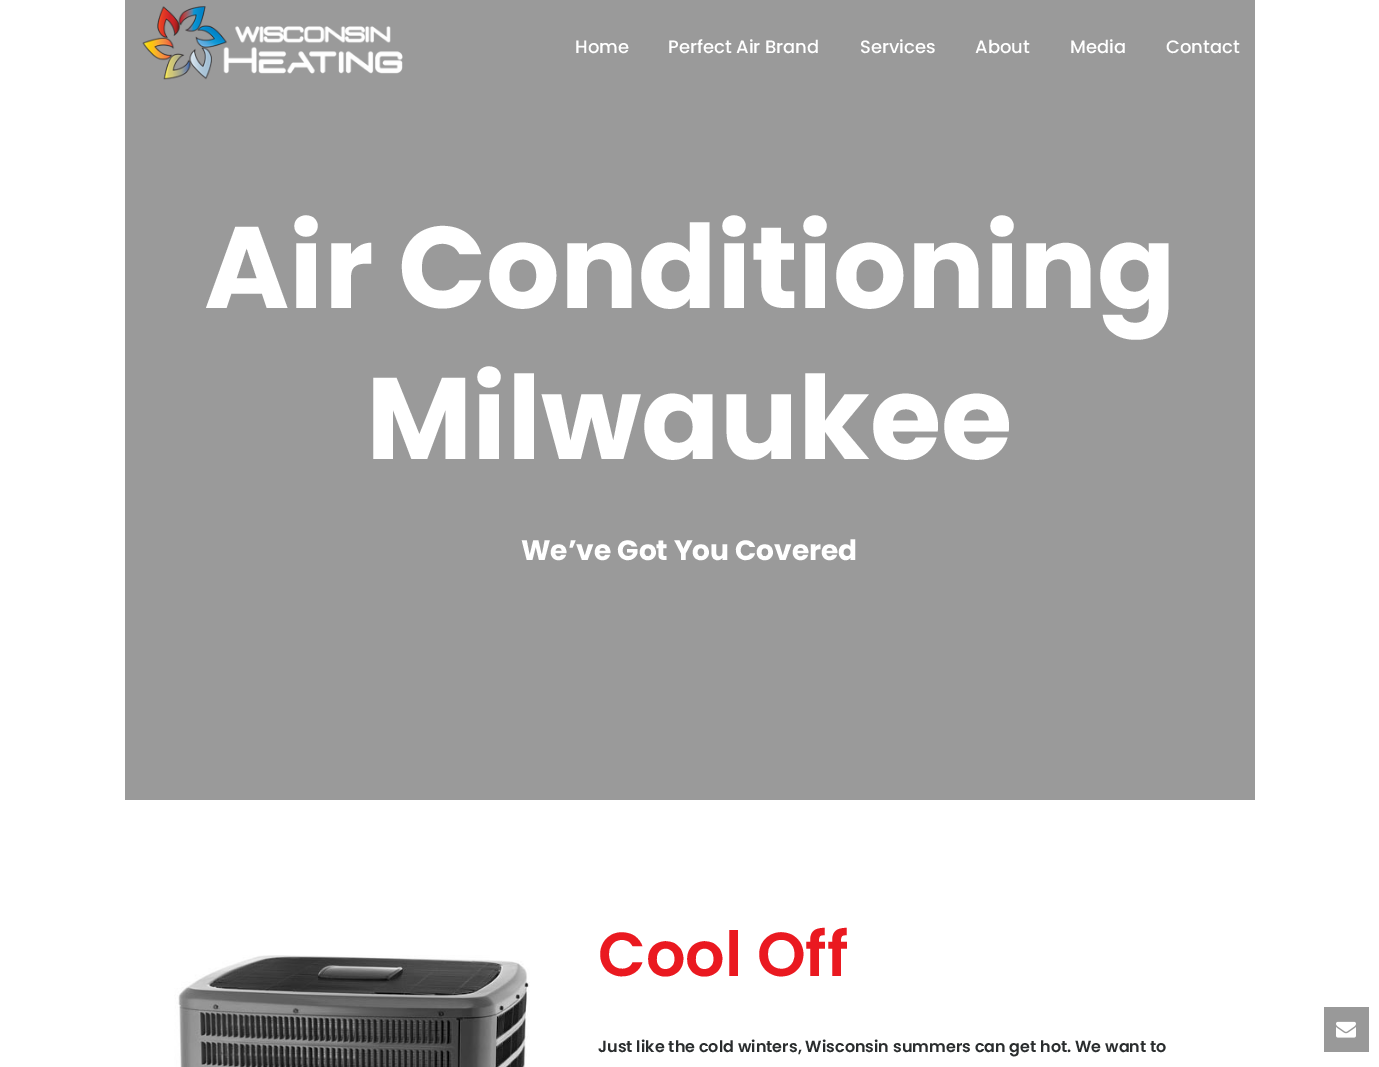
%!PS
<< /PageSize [1379 1067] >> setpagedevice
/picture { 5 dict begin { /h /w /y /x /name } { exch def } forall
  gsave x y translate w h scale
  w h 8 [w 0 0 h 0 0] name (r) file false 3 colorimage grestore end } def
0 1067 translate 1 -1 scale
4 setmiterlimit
1 setgray
0 0 1379 1067 rectfill
0.604 setgray
125 0 1130 800 rectfill
(img1.rgb) 142 6 261 74 picture
/Poppins-Medium [18 0 0 -18 0 0] selectfont
1 setgray
575 53 moveto (Home) show
668 53 moveto (Perfect Air Brand) show
860 53 moveto (Services) show
975 53 moveto (About) show
1070 53 moveto (Media) show
1166 53 moveto (Contact) show
/Poppins-Bold [116 0 0 -116 0 0] selectfont
204 308 moveto (Air Conditioning) show
366 459 moveto (Milwaukee) show
/Poppins-Bold [28 0 0 -28 0 0] selectfont
521 560 moveto (We’ve Got You Covered) show
(img2.rgb) 174 955 356 112 picture
/Poppins-SemiBold [62 0 0 -62 0 0] selectfont
0.918 0.098 0.125 setrgbcolor
598 976 moveto (Cool Off) show
/Poppins-SemiBold [16 0 0 -16 0 0] selectfont
0.165 0.176 0.18 setrgbcolor
598 1052 moveto (Just like the cold winters, Wisconsin summers can get hot. We want to) show
0.6 setgray
1324 1007 45 45 rectfill
(img3.rgb) 1336 1021 20 17 picture
showpage
